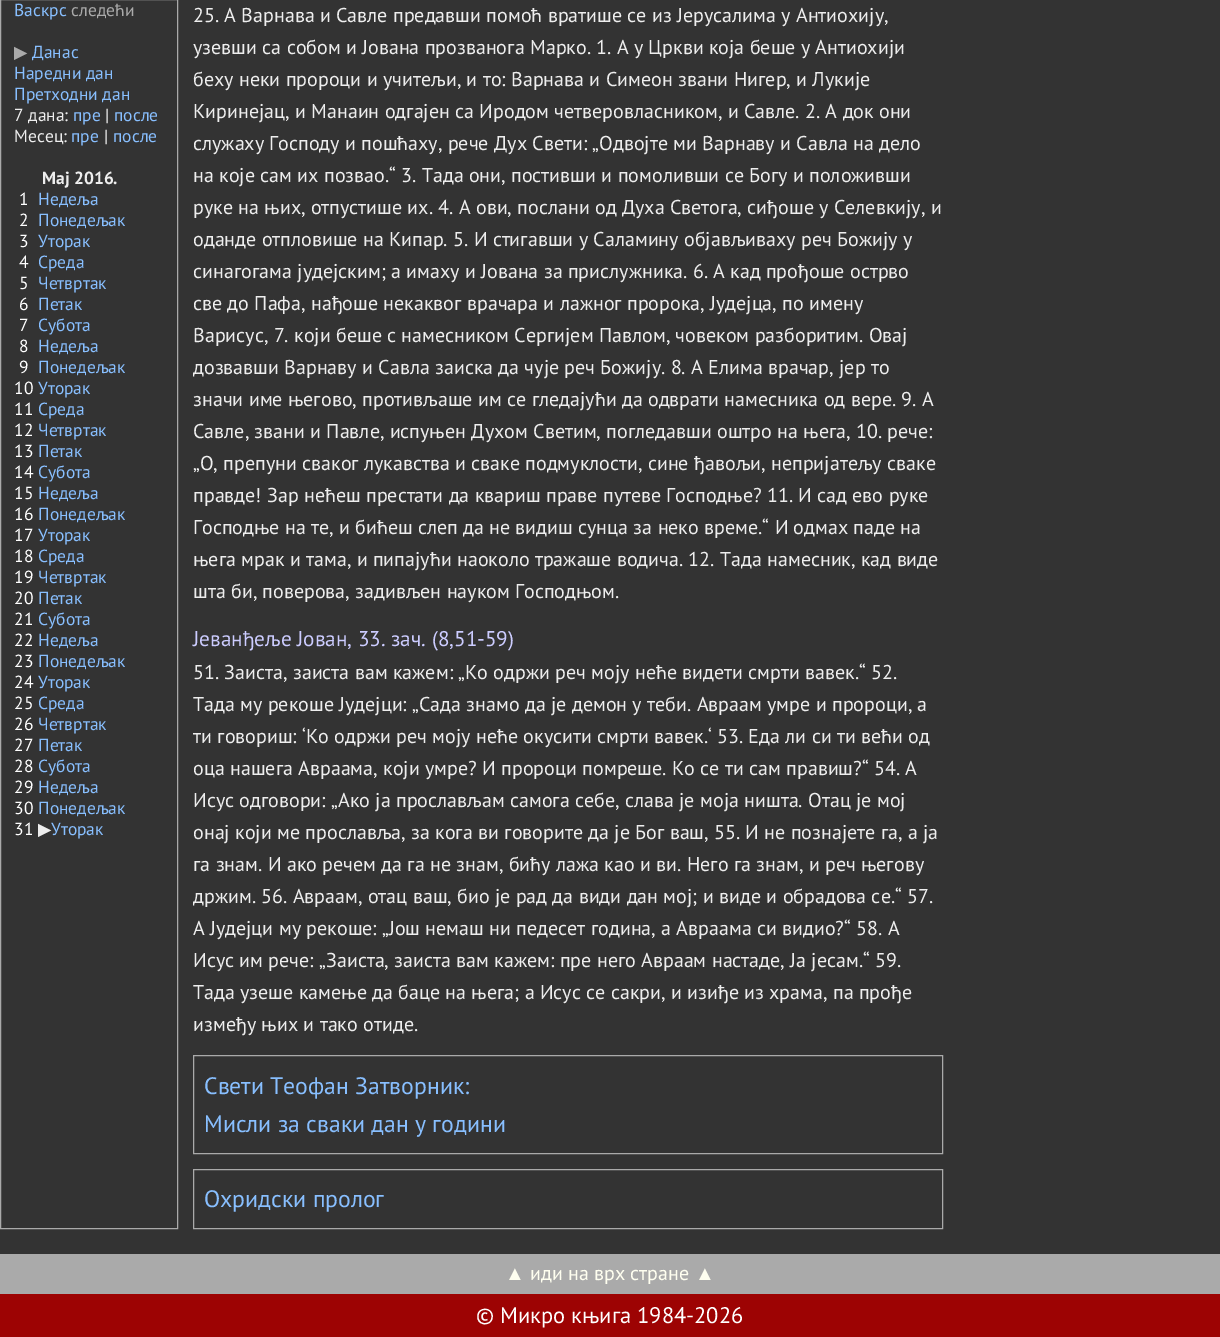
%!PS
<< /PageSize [1220 1337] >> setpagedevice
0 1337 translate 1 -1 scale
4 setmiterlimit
0.2 setgray
0 0 1220 1337 rectfill
0.667 setgray
0.5 -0.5 177 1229 rectstroke
/PTSans-Regular [17.5 0 0 -17.5 0 0] selectfont
0.533 0.749 1 setrgbcolor
14 16 moveto (Васкрс) show
0.667 setgray
71 16 moveto (следећи) show
/DejaVuSans-Regular [17.5 0 0 -17.5 0 0] selectfont
14 58 moveto (▶) show
/PTSans-Regular [17.5 0 0 -17.5 0 0] selectfont
0.533 0.749 1 setrgbcolor
32 58 moveto (Данас) show
14 79 moveto (Наредни дан) show
14 100 moveto (Претходни дан) show
0.933 setgray
14 121 moveto (7 дана:) show
0.533 0.749 1 setrgbcolor
73 121 moveto (пре) show
0.933 setgray
105 121 moveto (|) show
0.533 0.749 1 setrgbcolor
114 121 moveto (после) show
0.933 setgray
14 142 moveto (Месец:) show
0.533 0.749 1 setrgbcolor
71 142 moveto (пре) show
0.933 setgray
104 142 moveto (|) show
0.533 0.749 1 setrgbcolor
113 142 moveto (после) show
/PTSans-Bold [17.5 0 0 -17.5 0 0] selectfont
0.933 setgray
42 184 moveto (Мај 2016.) show
/PTSans-Regular [17.5 0 0 -17.5 0 0] selectfont
1 setgray
19 205 moveto (1) show
0.533 0.749 1 setrgbcolor
38 205 moveto (Недеља) show
1 setgray
19 226 moveto (2) show
0.533 0.749 1 setrgbcolor
38 226 moveto (Понедељак) show
1 setgray
19 247 moveto (3) show
0.533 0.749 1 setrgbcolor
38 247 moveto (Уторак) show
1 setgray
19 268 moveto (4) show
0.533 0.749 1 setrgbcolor
38 268 moveto (Среда) show
1 setgray
19 289 moveto (5) show
0.533 0.749 1 setrgbcolor
38 289 moveto (Четвртак) show
1 setgray
19 310 moveto (6) show
0.533 0.749 1 setrgbcolor
38 310 moveto (Петак) show
1 setgray
19 331 moveto (7) show
0.533 0.749 1 setrgbcolor
38 331 moveto (Субота) show
1 setgray
19 352 moveto (8) show
0.533 0.749 1 setrgbcolor
38 352 moveto (Недеља) show
1 setgray
19 373 moveto (9) show
0.533 0.749 1 setrgbcolor
38 373 moveto (Понедељак) show
1 setgray
14 394 moveto (10) show
0.533 0.749 1 setrgbcolor
38 394 moveto (Уторак) show
1 setgray
14 415 moveto (11) show
0.533 0.749 1 setrgbcolor
38 415 moveto (Среда) show
1 setgray
14 436 moveto (12) show
0.533 0.749 1 setrgbcolor
38 436 moveto (Четвртак) show
1 setgray
14 457 moveto (13) show
0.533 0.749 1 setrgbcolor
38 457 moveto (Петак) show
1 setgray
14 478 moveto (14) show
0.533 0.749 1 setrgbcolor
38 478 moveto (Субота) show
1 setgray
14 499 moveto (15) show
0.533 0.749 1 setrgbcolor
38 499 moveto (Недеља) show
1 setgray
14 520 moveto (16) show
0.533 0.749 1 setrgbcolor
38 520 moveto (Понедељак) show
1 setgray
14 541 moveto (17) show
0.533 0.749 1 setrgbcolor
38 541 moveto (Уторак) show
1 setgray
14 562 moveto (18) show
0.533 0.749 1 setrgbcolor
38 562 moveto (Среда) show
1 setgray
14 583 moveto (19) show
0.533 0.749 1 setrgbcolor
38 583 moveto (Четвртак) show
1 setgray
14 604 moveto (20) show
0.533 0.749 1 setrgbcolor
38 604 moveto (Петак) show
1 setgray
14 625 moveto (21) show
0.533 0.749 1 setrgbcolor
38 625 moveto (Субота) show
1 setgray
14 646 moveto (22) show
0.533 0.749 1 setrgbcolor
38 646 moveto (Недеља) show
1 setgray
14 667 moveto (23) show
0.533 0.749 1 setrgbcolor
38 667 moveto (Понедељак) show
1 setgray
14 688 moveto (24) show
0.533 0.749 1 setrgbcolor
38 688 moveto (Уторак) show
1 setgray
14 709 moveto (25) show
0.533 0.749 1 setrgbcolor
38 709 moveto (Среда) show
1 setgray
14 730 moveto (26) show
0.533 0.749 1 setrgbcolor
38 730 moveto (Четвртак) show
1 setgray
14 751 moveto (27) show
0.533 0.749 1 setrgbcolor
38 751 moveto (Петак) show
1 setgray
14 772 moveto (28) show
0.533 0.749 1 setrgbcolor
38 772 moveto (Субота) show
1 setgray
14 793 moveto (29) show
0.533 0.749 1 setrgbcolor
38 793 moveto (Недеља) show
1 setgray
14 814 moveto (30) show
0.533 0.749 1 setrgbcolor
38 814 moveto (Понедељак) show
1 setgray
14 835 moveto (31) show
/DejaVuSans-Regular [17.5 0 0 -17.5 0 0] selectfont
0.933 setgray
38 835 moveto (▶) show
/PTSans-Regular [17.5 0 0 -17.5 0 0] selectfont
0.533 0.749 1 setrgbcolor
51 835 moveto (Уторак) show
/PTSans-Regular [20 0 0 -20 0 0] selectfont
0.933 setgray
193 22 moveto (25. А Варнава и Савле предавши помоћ вратише се из Јерусалима у Антиохију,) show
193 54 moveto (узевши са собом и Јована прозванога Марко. 1. А у Цркви која беше у Антиохији) show
193 86 moveto (беху неки пророци и учитељи, и то: Варнава и Симеон звани Нигер, и Лукије) show
193 118 moveto (Киринејац, и Манаин одгајен са Иродом четверовласником, и Савле. 2. А док они) show
193 150 moveto (служаху Господу и пошћаху, рече Дух Свети: „Одвојте ми Варнаву и Савла на дело) show
193 182 moveto (на које сам их позвао.“ 3. Тада они, постивши и помоливши се Богу и положивши) show
193 214 moveto (руке на њих, отпустише их. 4. А ови, послани од Духа Светога, сиђоше у Селевкију, и) show
193 246 moveto (оданде отпловише на Кипар. 5. И стигавши у Саламину објављиваху реч Божију у) show
193 278 moveto (синагогама јудејским; а имаху и Јована за прислужника. 6. А кад прођоше острво) show
193 310 moveto (све до Пафа, нађоше некаквог врачара и лажног пророка, Јудејца, по имену) show
193 342 moveto (Варисус, 7. који беше с намесником Сергијем Павлом, човеком разборитим. Овај) show
193 374 moveto (дозвавши Варнаву и Савла заиска да чује реч Божију. 8. А Елима врачар, јер то) show
193 406 moveto (значи име његово, противљаше им се гледајући да одврати намесника од вере. 9. А) show
193 438 moveto (Савле, звани и Павле, испуњен Духом Светим, погледавши оштро на њега, 10. рече:) show
193 470 moveto („О, препуни сваког лукавства и сваке подмуклости, сине ђавољи, непријатељу сваке) show
193 502 moveto (правде! Зар нећеш престати да квариш праве путеве Господње? 11. И сад ево руке) show
193 534 moveto (Господње на те, и бићеш слеп да не видиш сунца за неко време.“ И одмах паде на) show
193 566 moveto (њега мрак и тама, и пипајући наоколо тражаше водича. 12. Тада намесник, кад виде) show
193 598 moveto (шта би, поверова, задивљен науком Господњом.) show
/PTSans-Regular [21.25 0 0 -21.25 0 0] selectfont
0.8 0.8 1 setrgbcolor
193 646 moveto (Јеванђеље Јован, 33. зач. \(8,51-59\)) show
/PTSans-Regular [20 0 0 -20 0 0] selectfont
0.933 setgray
193 679 moveto (51. Заиста, заиста вам кажем: „Ко одржи реч моју неће видети смрти вавек.“ 52.) show
193 711 moveto (Тада му рекоше Јудејци: „Сада знамо да је демон у теби. Авраам умре и пророци, а) show
193 743 moveto (ти говориш: ‘Ко одржи реч моју неће окусити смрти вавек.‘ 53. Еда ли си ти већи од) show
193 775 moveto (оца нашега Авраама, који умре? И пророци помреше. Ко се ти сам правиш?“ 54. А) show
193 807 moveto (Исус одговори: „Ако ја прослављам самога себе, слава је моја ништа. Отац је мој) show
193 839 moveto (онај који ме прославља, за кога ви говорите да је Бог ваш, 55. И не познајете га, а ја) show
193 871 moveto (га знам. И ако речем да га не знам, бићу лажа као и ви. Него га знам, и реч његову) show
193 903 moveto (држим. 56. Авраам, отац ваш, био је рад да види дан мој; и виде и обрадова се.“ 57.) show
193 935 moveto (А Јудејци му рекоше: „Још немаш ни педесет година, а Авраама си видио?“ 58. А) show
193 967 moveto (Исус им рече: „Заиста, заиста вам кажем: пре него Авраам настаде, Ја јесам.“ 59.) show
193 999 moveto (Тада узеше камење да баце на њега; а Исус се сакри, и изиђе из храма, па прође) show
193 1031 moveto (између њих и тако отиде.) show
0.667 setgray
193.5 1055.5 749 98 rectstroke
/PTSans-Regular [23.75 0 0 -23.75 0 0] selectfont
0.533 0.749 1 setrgbcolor
204 1094 moveto (Свети Теофан Затворник:) show
204 1132 moveto (Мисли за сваки дан у години) show
0.667 setgray
193.5 1169.5 749 59 rectstroke
0.533 0.749 1 setrgbcolor
204 1207 moveto (Охридски пролог) show
0.667 setgray
0 1254 1220 40 rectfill
/LiberationSans-Regular [20 0 0 -20 0 0] selectfont
1 1 0.941 setrgbcolor
505 1280 moveto (▲) show
/PTSans-Regular [20 0 0 -20 0 0] selectfont
530 1280 moveto (иди на врх стране) show
/LiberationSans-Regular [20 0 0 -20 0 0] selectfont
695 1280 moveto (▲) show
0.616 0.012 0.012 setrgbcolor
0 1294 1220 43 rectfill
/PTSans-Regular [22.5 0 0 -22.5 0 0] selectfont
1 setgray
476 1323 moveto (© Микро књига 1984-2026) show
showpage
